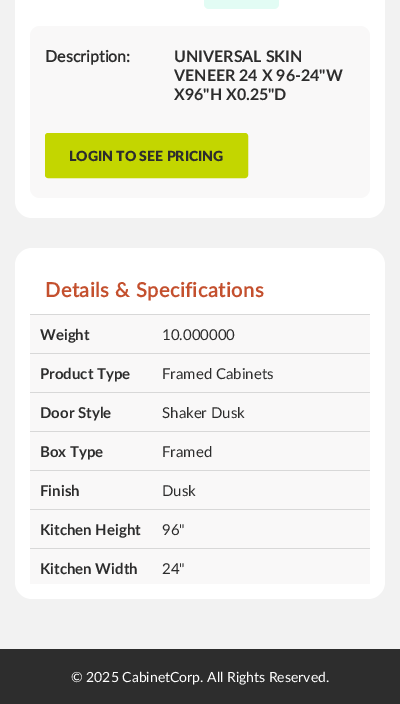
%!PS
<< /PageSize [400 704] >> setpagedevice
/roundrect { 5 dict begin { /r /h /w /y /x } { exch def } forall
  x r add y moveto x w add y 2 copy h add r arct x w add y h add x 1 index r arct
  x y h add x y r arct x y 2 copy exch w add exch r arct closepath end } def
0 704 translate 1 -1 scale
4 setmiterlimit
0.949 setgray
0 0 400 704 rectfill
1 setgray
15 -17 370 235 17 roundrect fill
0.886 0.988 0.957 setrgbcolor
204 -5 75 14 5 roundrect fill
0.976 0.973 0.973 setrgbcolor
30 26 340 172 10 roundrect fill
/Lato-Bold [16 0 0 -16 0 0] selectfont
0.176 setgray
45 62 moveto (Description:) show
/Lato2-Bold [16 0 0 -16 0 0] selectfont
174 62 moveto (UNIVERSAL SKIN) show
174 81 moveto (VENEER 24 X 96-24"W) show
174 100 moveto (X96"H X0.25"D) show
0.765 0.839 0 setrgbcolor
46 134 201 43 2 roundrect gsave fill grestore
2 setlinewidth
stroke
/Lato-Black [14 0 0 -14 0 0] selectfont
0.176 setgray
69 161 moveto (LOGIN TO SEE PRICING) show
1 setgray
15 248 370 351 17 roundrect fill
/Lato-Bold [20 0 0 -20 0 0] selectfont
0.769 0.314 0.18 setrgbcolor
45 297 moveto 0.5 0 (Details & Specifications) ashow
0.976 0.973 0.973 setrgbcolor
30 315 340 38 rectfill
0.847 setgray
30 314 340 1 rectfill
/Lato2-Bold [15 0 0 -15 0 0] selectfont
0.176 setgray
40 340 moveto (Weight) show
/Lato-Regular [15 0 0 -15 0 0] selectfont
162 340 moveto (10.000000) show
0.976 0.973 0.973 setrgbcolor
30 354 340 38 rectfill
0.847 setgray
30 353 340 1 rectfill
/Lato2-Bold [15 0 0 -15 0 0] selectfont
0.176 setgray
40 379 moveto (Product Type) show
/Lato-Regular [15 0 0 -15 0 0] selectfont
162 379 moveto (Framed Cabinets) show
0.976 0.973 0.973 setrgbcolor
30 393 340 38 rectfill
0.847 setgray
30 392 340 1 rectfill
/Lato2-Bold [15 0 0 -15 0 0] selectfont
0.176 setgray
40 418 moveto (Door Style) show
/Lato-Regular [15 0 0 -15 0 0] selectfont
162 418 moveto (Shaker Dusk) show
0.976 0.973 0.973 setrgbcolor
30 432 340 38 rectfill
0.847 setgray
30 431 340 1 rectfill
/Lato2-Bold [15 0 0 -15 0 0] selectfont
0.176 setgray
40 457 moveto (Box Type) show
/Lato-Regular [15 0 0 -15 0 0] selectfont
162 457 moveto (Framed) show
0.976 0.973 0.973 setrgbcolor
30 471 340 38 rectfill
0.847 setgray
30 470 340 1 rectfill
/Lato2-Bold [15 0 0 -15 0 0] selectfont
0.176 setgray
40 496 moveto (Finish) show
/Lato-Regular [15 0 0 -15 0 0] selectfont
162 496 moveto (Dusk) show
0.976 0.973 0.973 setrgbcolor
30 510 340 38 rectfill
0.847 setgray
30 509 340 1 rectfill
/Lato2-Bold [15 0 0 -15 0 0] selectfont
0.176 setgray
40 535 moveto (Kitchen Height) show
/Lato-Regular [15 0 0 -15 0 0] selectfont
162 535 moveto (96") show
0.976 0.973 0.973 setrgbcolor
30 549 340 35 rectfill
0.847 setgray
30 548 340 1 rectfill
/Lato2-Bold [15 0 0 -15 0 0] selectfont
0.176 setgray
40 574 moveto (Kitchen Width) show
/Lato-Regular [15 0 0 -15 0 0] selectfont
162 574 moveto (24") show
0 649 400 55 rectfill
/Lato-Regular [14 0 0 -14 0 0] selectfont
1 setgray
71 682 moveto (© 2025 CabinetCorp. All Rights Reserved.) show
showpage
